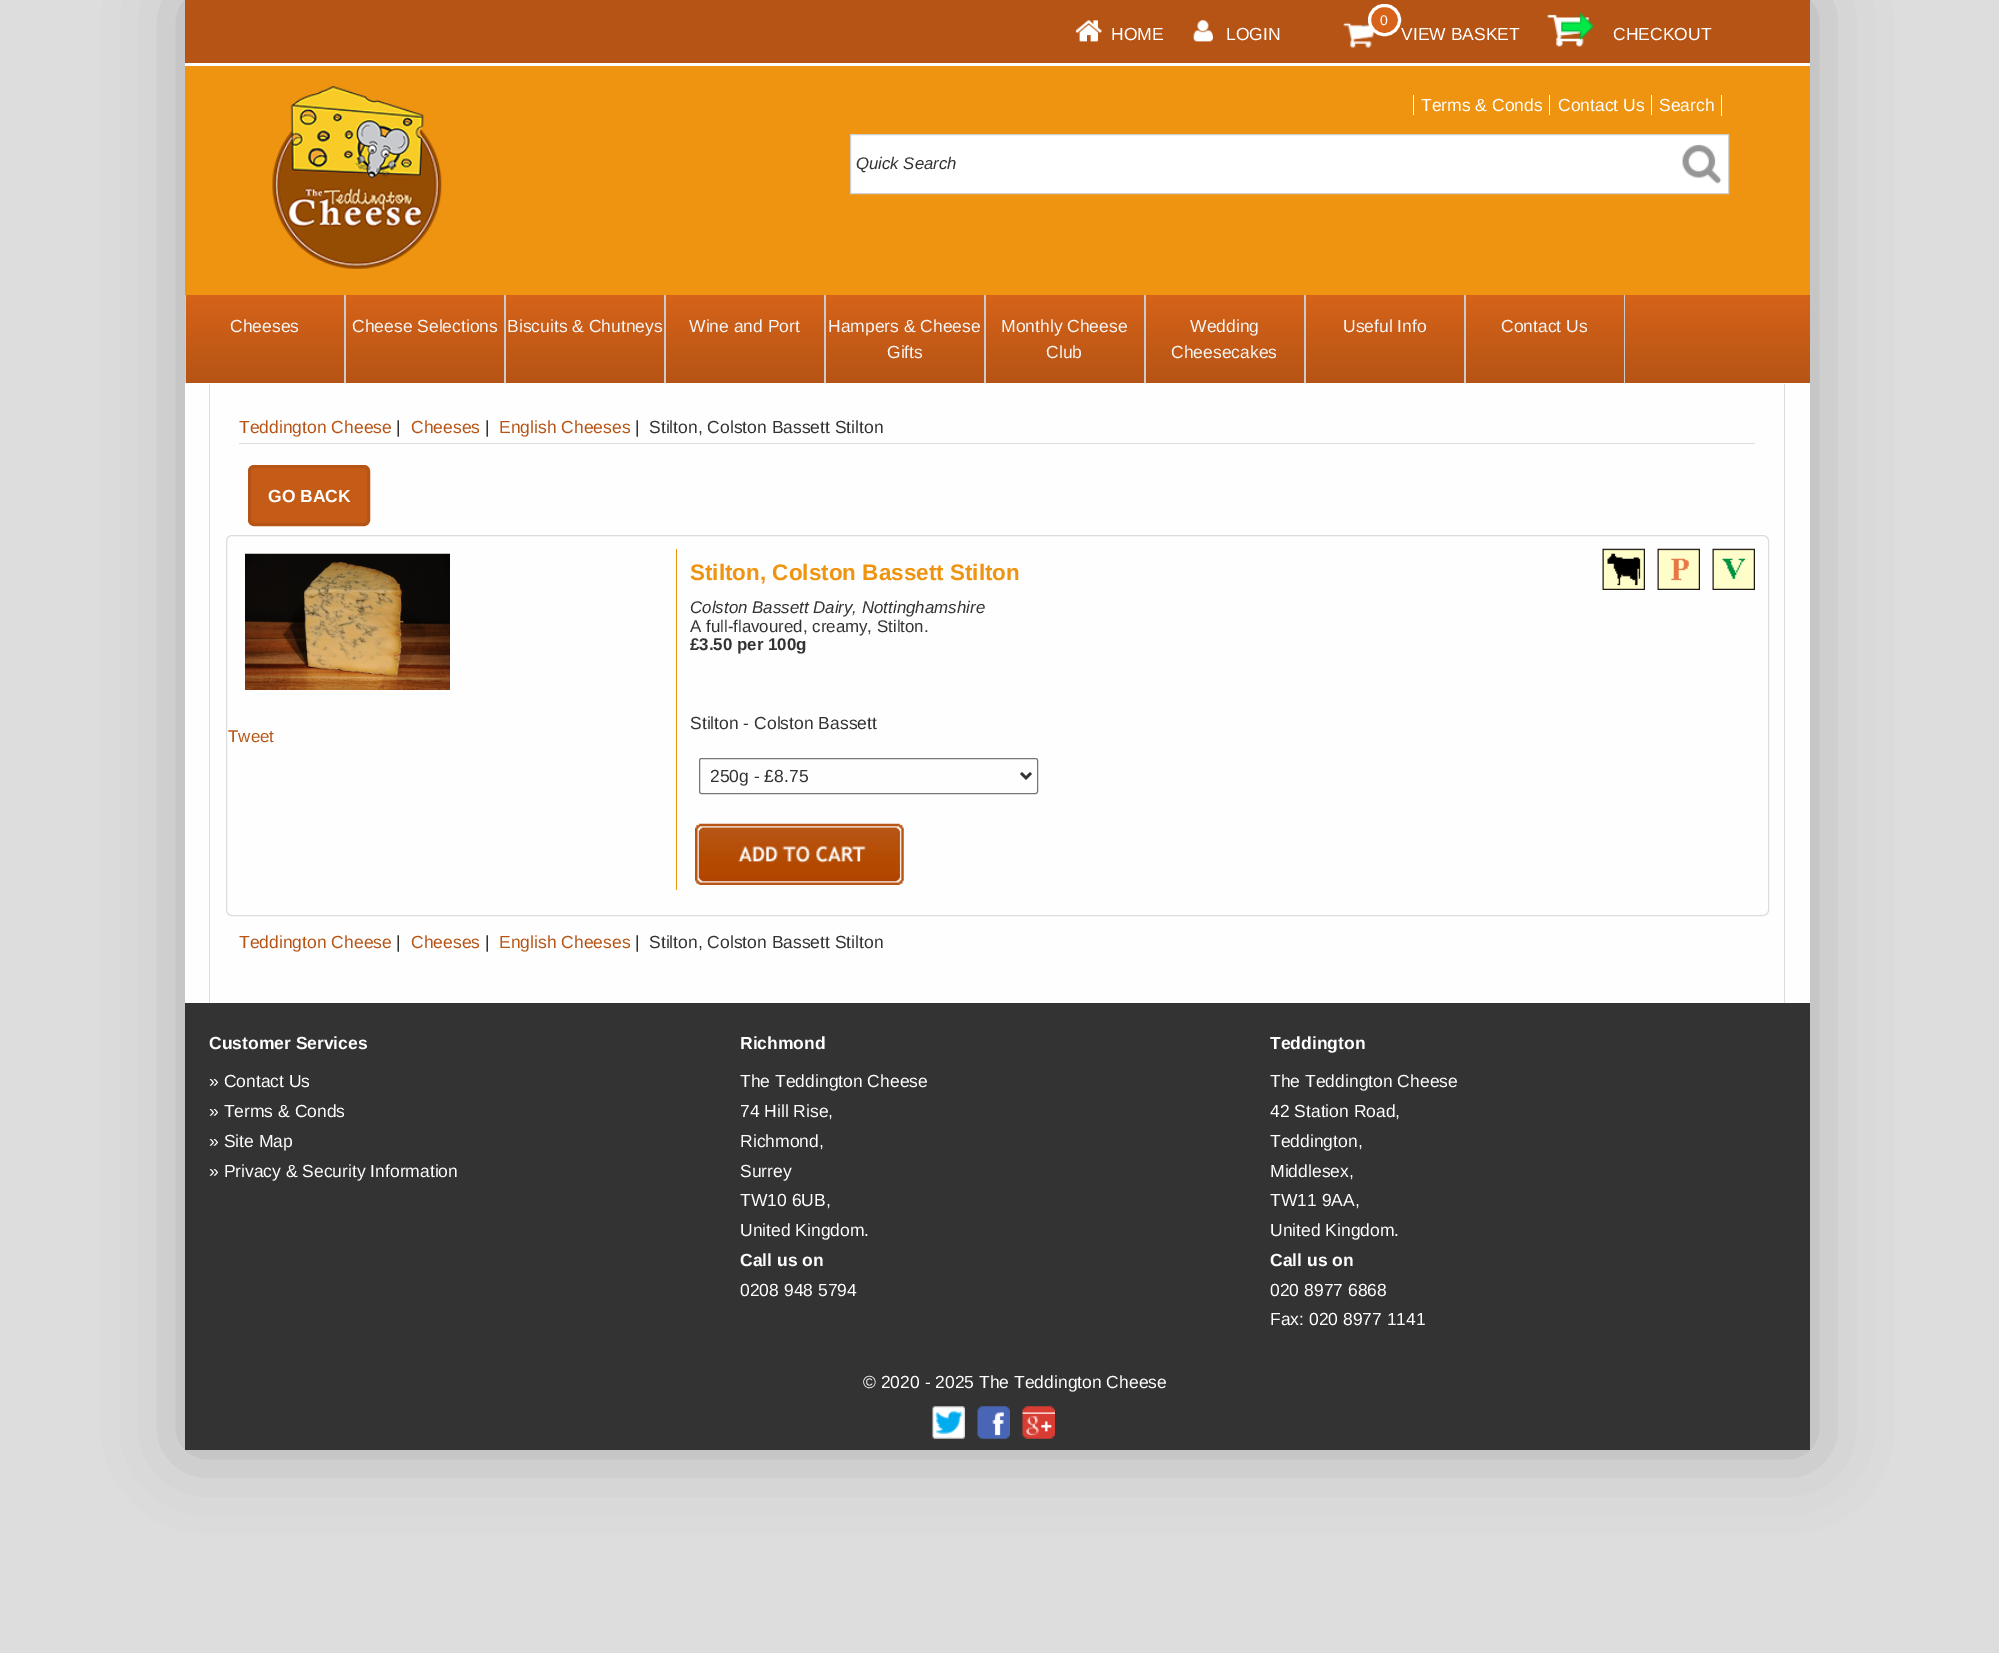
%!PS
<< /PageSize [1999 1653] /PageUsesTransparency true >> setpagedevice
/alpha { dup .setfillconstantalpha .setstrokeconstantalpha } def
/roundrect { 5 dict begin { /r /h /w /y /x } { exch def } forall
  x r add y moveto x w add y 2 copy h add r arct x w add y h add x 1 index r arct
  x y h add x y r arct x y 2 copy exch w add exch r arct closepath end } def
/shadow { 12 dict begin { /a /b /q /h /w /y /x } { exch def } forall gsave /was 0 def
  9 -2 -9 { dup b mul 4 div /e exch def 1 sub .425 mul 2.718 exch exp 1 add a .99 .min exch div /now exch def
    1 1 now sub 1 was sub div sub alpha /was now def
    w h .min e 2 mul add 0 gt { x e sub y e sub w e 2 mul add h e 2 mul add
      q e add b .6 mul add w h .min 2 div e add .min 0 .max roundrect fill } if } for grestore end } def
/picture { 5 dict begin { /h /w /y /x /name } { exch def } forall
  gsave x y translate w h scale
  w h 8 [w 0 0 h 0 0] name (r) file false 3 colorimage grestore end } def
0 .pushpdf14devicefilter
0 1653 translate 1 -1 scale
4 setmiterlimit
0.867 setgray
0 0 1999 1653 rectfill
0 setgray
185 0 1625 1450 0 37.5 0.2 shadow
0.996 setgray
185 384 1625 619 rectfill
0.714 0.329 0.082 setrgbcolor
185 0 1625 63 rectfill
(img1.rgb) 1075 20 27 22 picture
/LiberationSans-Regular [17.5 0 0 -17.5 0 0] selectfont
1 setgray
1111 40 moveto (HOME) show
(img2.rgb) 1193 20 20 22 picture
1226 40 moveto (LOGIN) show
(img3.rgb) 1343 22 32 26 picture
0.839 0.388 0.098 setrgbcolor
1369.5 5.5 30 29 14.5 roundrect gsave fill grestore
1 setgray
3 setlinewidth
stroke
/LiberationSans-Regular [14 0 0 -14 0 0] selectfont
1380 25 moveto (0) show
/LiberationSans-Regular [17.5 0 0 -17.5 0 0] selectfont
1401 40 moveto (VIEW BASKET) show
(img4.rgb) 1547 12 47 35 picture
1613 40 moveto (CHECKOUT) show
0.937 0.58 0.063 setrgbcolor
185 66 1625 229 rectfill
1 setgray
185 63 1625 3 rectfill
(img5.rgb) 272 86 170 183 picture
1721 95 1 21 rectfill
1421 111 moveto (Terms & Conds) show
1413 95 1 20 rectfill
1558 111 moveto (Contact Us) show
1549 95 1 20 rectfill
1659 111 moveto (Search) show
1651 95 1 20 rectfill
newpath 850.5 134.5 moveto 1728.5 134.5 lineto 1728.5 193.5 lineto 850.5 193.5 lineto closepath gsave fill grestore
0.816 setgray
1 setlinewidth
stroke
/LiberationSans-Italic [16.75 0 0 -16.75 0 0] selectfont
0.2 setgray
856 169 moveto (Quick Search) show
(img6.rgb) 1682 144 40 40 picture
gsave newpath 186 295 moveto 1810 295 lineto 1810 383 lineto 186 383 lineto closepath clip newpath
<< /ShadingType 2 /ColorSpace /DeviceRGB /Coords [998 295 998 383] /Extend [true true] /Function << /FunctionType 2 /Domain [0 1] /C0 [0.839 0.388 0.098] /C1 [0.714 0.329 0.082] /N 1 >> >> shfill grestore
1 setgray
185 383 1625 1 rectfill
0.8 setgray
344 295 2 88 rectfill
185 295 1 88 rectfill
/LiberationSans-Regular [17.5 0 0 -17.5 0 0] selectfont
0.965 setgray
230 332 moveto (Cheeses) show
0.8 setgray
504 295 2 88 rectfill
0.965 setgray
352 332 moveto (Cheese Selections) show
0.8 setgray
664 295 2 88 rectfill
0.965 setgray
507 332 moveto (Biscuits & Chutneys) show
0.8 setgray
824 295 2 88 rectfill
0.965 setgray
689 332 moveto (Wine and Port) show
0.8 setgray
984 295 2 88 rectfill
0.965 setgray
828 332 moveto (Hampers & Cheese) show
887 358 moveto (Gifts) show
0.8 setgray
1144 295 2 88 rectfill
0.965 setgray
1001 332 moveto (Monthly Cheese) show
1046 358 moveto (Club) show
0.8 setgray
1304 295 2 88 rectfill
0.965 setgray
1190 332 moveto (Wedding) show
1171 358 moveto (Cheesecakes) show
0.8 setgray
1464 295 2 88 rectfill
0.965 setgray
1343 332 moveto (Useful Info) show
0.8 setgray
1624 295 1 88 rectfill
0.965 setgray
1501 332 moveto (Contact Us) show
0.867 setgray
1784 384 1 619 rectfill
209 384 1 619 rectfill
239 443 1516 1 rectfill
0.714 0.329 0.082 setrgbcolor
239 433 moveto (Teddington Cheese) show
0.2 setgray
396 433 moveto (|) show
0.714 0.329 0.082 setrgbcolor
411 433 moveto (Cheeses) show
0.2 setgray
485 433 moveto (|) show
0.714 0.329 0.082 setrgbcolor
499 433 moveto (English Cheeses) show
0.2 setgray
635 433 moveto (|) show
649 433 moveto (Stilton, Colston Bassett Stilton) show
0.769 0.357 0.09 setrgbcolor
249.5 466.5 119 58 4.5 roundrect gsave fill grestore
0.714 0.329 0.082 setrgbcolor
3 setlinewidth
stroke
/LiberationSans-Bold [17.5 0 0 -17.5 0 0] selectfont
1 setgray
268 502 moveto (GO BACK) show
0.867 setgray
1 setlinewidth
226.5 535.5 1542 380 5.5 roundrect stroke
(img7.rgb) 245 553 205 137 picture
/LiberationSans-Regular [16.9 0 0 -16.9 0 0] selectfont
0.714 0.329 0.082 setrgbcolor
228 742 moveto (Tweet) show
0.937 0.58 0.063 setrgbcolor
676 549 1 341 rectfill
/LiberationSans-Bold [22.5 0 0 -22.5 0 0] selectfont
690 580 moveto (Stilton, Colston Bassett Stilton) show
(img8.rgb) 1602 548 43 42 picture
(img9.rgb) 1657 548 43 42 picture
(img10.rgb) 1712 548 43 42 picture
/LiberationSans-Italic [16.9 0 0 -16.9 0 0] selectfont
0.2 setgray
690 613 moveto (Colston Bassett Dairy, Nottinghamshire) show
/LiberationSans-Regular [16.9 0 0 -16.9 0 0] selectfont
690 632 moveto (A full-flavoured, creamy, Stilton.) show
gsave
690 598 896 56 rectclip
/LiberationSans-Bold [16.9 0 0 -16.9 0 0] selectfont
690 650 moveto (£3.50 per 100g) show
grestore
/LiberationSans-Regular [17.5 0 0 -17.5 0 0] selectfont
690 729 moveto (Stilton - Colston Bassett) show
0.463 setgray
699.5 758.5 338 35 2 roundrect stroke
0.2 setgray
2.5 setlinewidth
newpath 1021 773 moveto 1026 778 lineto 1031 773 lineto stroke
710 782 moveto (250g - £8.75) show
(img11.rgb) 695 823 209 62 picture
0.714 0.329 0.082 setrgbcolor
239 948 moveto (Teddington Cheese) show
0.2 setgray
396 948 moveto (|) show
0.714 0.329 0.082 setrgbcolor
411 948 moveto (Cheeses) show
0.2 setgray
485 948 moveto (|) show
0.714 0.329 0.082 setrgbcolor
499 948 moveto (English Cheeses) show
0.2 setgray
635 948 moveto (|) show
649 948 moveto (Stilton, Colston Bassett Stilton) show
185 1003 1625 447 rectfill
/LiberationSans-Bold [17.5 0 0 -17.5 0 0] selectfont
1 setgray
209 1049 moveto (Customer Services) show
/LiberationSans-Regular [17.5 0 0 -17.5 0 0] selectfont
209 1087 moveto (» Contact Us) show
209 1117 moveto (» Terms & Conds) show
209 1147 moveto (» Site Map) show
209 1177 moveto (» Privacy & Security Information) show
/LiberationSans-Bold [17.5 0 0 -17.5 0 0] selectfont
740 1049 moveto (Richmond) show
/LiberationSans-Regular [17.5 0 0 -17.5 0 0] selectfont
740 1087 moveto (The Teddington Cheese) show
740 1117 moveto (74 Hill Rise,) show
740 1147 moveto (Richmond,) show
740 1177 moveto (Surrey) show
740 1206 moveto (TW10 6UB,) show
740 1236 moveto (United Kingdom.) show
/LiberationSans-Bold [17.5 0 0 -17.5 0 0] selectfont
740 1266 moveto (Call us on) show
/LiberationSans-Regular [17.5 0 0 -17.5 0 0] selectfont
740 1296 moveto (0208 948 5794) show
/LiberationSans-Bold [17.5 0 0 -17.5 0 0] selectfont
1270 1049 moveto (Teddington) show
/LiberationSans-Regular [17.5 0 0 -17.5 0 0] selectfont
1270 1087 moveto (The Teddington Cheese) show
1270 1117 moveto (42 Station Road,) show
1270 1147 moveto (Teddington,) show
1270 1177 moveto (Middlesex,) show
1270 1206 moveto (TW11 9AA,) show
1270 1236 moveto (United Kingdom.) show
/LiberationSans-Bold [17.5 0 0 -17.5 0 0] selectfont
1270 1266 moveto (Call us on) show
/LiberationSans-Regular [17.5 0 0 -17.5 0 0] selectfont
1270 1296 moveto (020 8977 6868) show
1270 1325 moveto (Fax: 020 8977 1141) show
863 1388 moveto (© 2020 - 2025 The Teddington Cheese) show
(img12.rgb) 932 1406 33 33 picture
(img13.rgb) 977 1406 33 33 picture
(img14.rgb) 1022 1406 33 33 picture
.poppdf14devicefilter showpage
